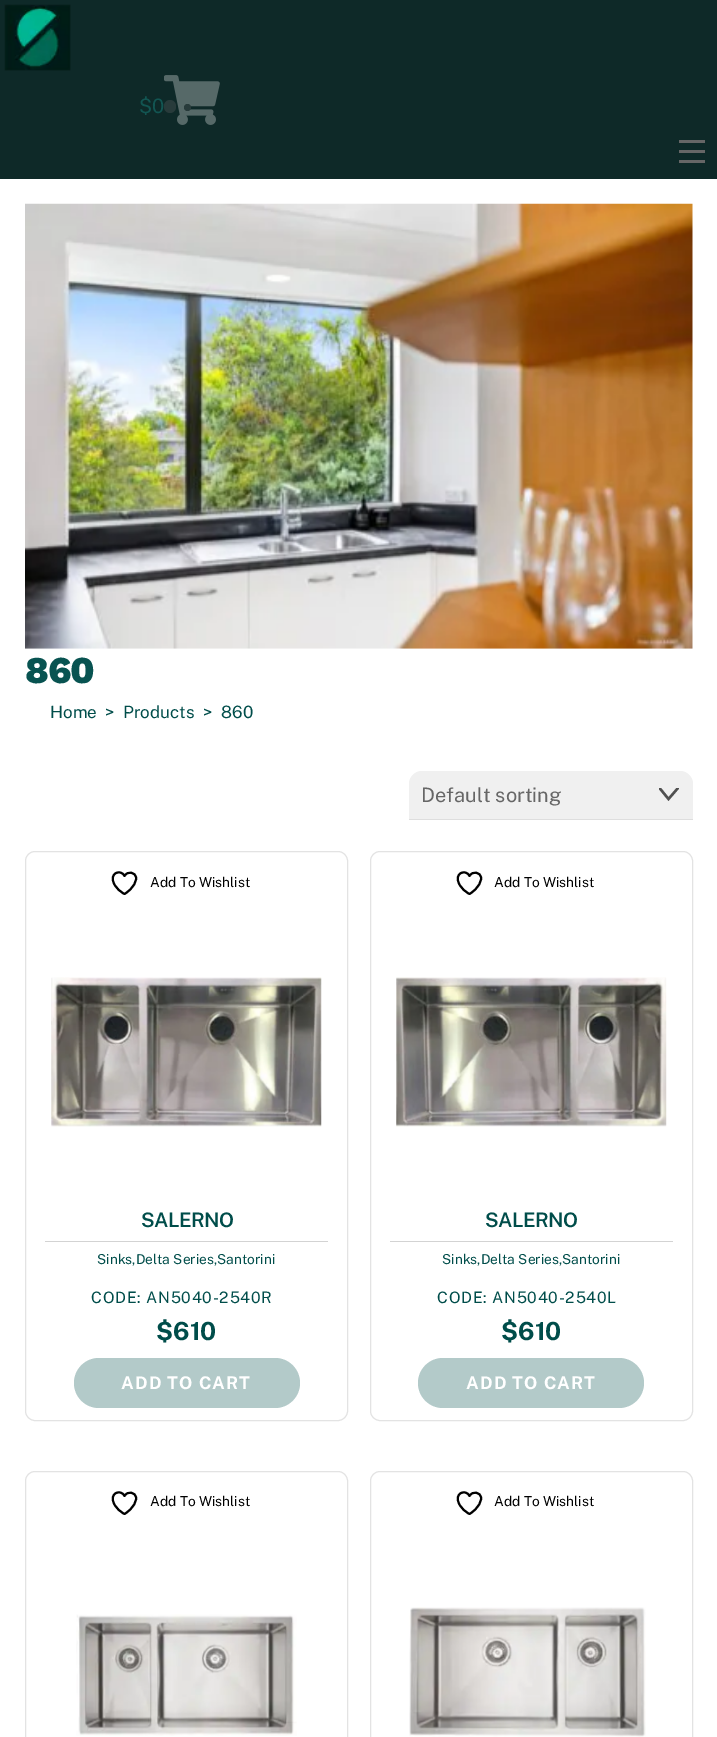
%!PS
<< /PageSize [717 1737] >> setpagedevice
/roundrect { 5 dict begin { /r /h /w /y /x } { exch def } forall
  x r add y moveto x w add y 2 copy h add r arct x w add y h add x 1 index r arct
  x y h add x y r arct x y 2 copy exch w add exch r arct closepath end } def
/picture { 5 dict begin { /h /w /y /x /name } { exch def } forall
  gsave x y translate w h scale
  w h 8 [w 0 0 h 0 0] name (r) file false 3 colorimage grestore end } def
0 1737 translate 1 -1 scale
4 setmiterlimit
1 setgray
0 0 717 1737 rectfill
0.055 0.161 0.157 setrgbcolor
0 0 717 179 rectfill
(img1.rgb) 4 4 67 67 picture
/PublicSans-Regular [20 0 0 -20 0 0] selectfont
0.071 0.333 0.322 setrgbcolor
139 113 moveto ($0) show
(img2.rgb) 164 75 56 50 picture
0.157 0.231 0.231 setrgbcolor
164 100 12 13 6 roundrect fill
newpath 187.5 107.5 3.5 0 360 arc closepath fill
0.4 setgray
679 160 26 3 rectfill
679 140 26 3 rectfill
679 150 26 3 rectfill
(img3.rgb) 25 203 668 446 picture
/WorkSans-ExtraBold [38 0 0 -38 0 0] selectfont
0.031 0.325 0.318 setrgbcolor
25 683 moveto -1 0 (860) ashow
/PublicSans-Regular [17 0 0 -17 0 0] selectfont
0 0.302 0.29 setrgbcolor
50 718 moveto (Home) show
105 718 moveto (>) show
123 718 moveto (Products) show
203 718 moveto (>) show
221 718 moveto (860) show
0.941 setgray
newpath 422 771 moveto 680 771 lineto 687 771 693 777 693 784 curveto 693 820 lineto 409 820 lineto 409 784 lineto 409 777 415 771 422 771 curveto closepath fill
gsave
659 788 20 20 rectclip
0.314 setgray
2.4 setlinewidth
1 setlinecap
newpath 659.5 788 moveto 668.5 799 lineto 678 788 lineto stroke
grestore
0.871 setgray
409 819 284 1 rectfill
/PublicSans-Regular [20 0 0 -20 0 0] selectfont
0.4 setgray
421 802 moveto (Default sorting) show
0.89 setgray
25.5 851.5 322 569 9.5 roundrect stroke
0 setgray
2 setlinewidth
1 setlinecap
1 setlinejoin
newpath 136 878 moveto 136 872 127 870.5 124.5 876 curveto 121 868.5 108 873 114.5 884.5 curveto 116.5 888.5 120.5 892 124.5 894 curveto 124.5 894 136 887.5 136 878 curveto closepath stroke
/PublicSans-Regular [13.75 0 0 -13.75 0 0] selectfont
150 887 moveto (Add To Wishlist) show
(img4.rgb) 51 977 271 150 picture
0.827 setgray
45 1241 283 1 rectfill
/PublicSans-SemiBold [20 0 0 -20 0 0] selectfont
0 0.302 0.29 setrgbcolor
141 1227 moveto -0.5 0 (SALERNO) ashow
/PublicSans-Regular [13.75 0 0 -13.75 0 0] selectfont
97 1264 moveto (Sinks,Delta Series,Santorini) show
/PublicSans-Regular [15.75 0 0 -15.75 0 0] selectfont
91 1303 moveto 0.75 0 (CODE: AN5040-2540R) ashow
/PublicSans-Bold [25 0 0 -25 0 0] selectfont
156 1340 moveto ($610) show
0.702 0.792 0.788 setrgbcolor
74 1358 226 50 25 roundrect fill
/PublicSans-Bold [17.5 0 0 -17.5 0 0] selectfont
1 setgray
121 1389 moveto 1.1 0 (ADD TO CART) ashow
0.89 setgray
1 setlinewidth
0 setlinecap
0 setlinejoin
370.5 851.5 322 569 9.5 roundrect stroke
0 setgray
2 setlinewidth
1 setlinecap
1 setlinejoin
newpath 481 878 moveto 481 872 472 870.5 469.5 876 curveto 466 868.5 453 873 459.5 884.5 curveto 461.5 888.5 465.5 892 469.5 894 curveto 469.5 894 481 887.5 481 878 curveto closepath stroke
/PublicSans-Regular [13.75 0 0 -13.75 0 0] selectfont
494 887 moveto (Add To Wishlist) show
(img5.rgb) 396 977 271 150 picture
0.827 setgray
390 1241 283 1 rectfill
/PublicSans-SemiBold [20 0 0 -20 0 0] selectfont
0 0.302 0.29 setrgbcolor
485 1227 moveto -0.5 0 (SALERNO) ashow
/PublicSans-Regular [13.75 0 0 -13.75 0 0] selectfont
442 1264 moveto (Sinks,Delta Series,Santorini) show
/PublicSans-Regular [15.75 0 0 -15.75 0 0] selectfont
437 1303 moveto 0.75 0 (CODE: AN5040-2540L) ashow
/PublicSans-Bold [25 0 0 -25 0 0] selectfont
501 1340 moveto ($610) show
0.702 0.792 0.788 setrgbcolor
418 1358 226 50 25 roundrect fill
/PublicSans-Bold [17.5 0 0 -17.5 0 0] selectfont
1 setgray
466 1389 moveto 1.1 0 (ADD TO CART) ashow
0.89 setgray
1 setlinewidth
0 setlinecap
0 setlinejoin
25.5 1471.5 322 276 9.5 roundrect stroke
0 setgray
2 setlinewidth
1 setlinecap
1 setlinejoin
newpath 136 1498 moveto 136 1492 127 1490.5 124.5 1496 curveto 121 1488.5 108 1493 114.5 1504.5 curveto 116.5 1508.5 120.5 1512 124.5 1514 curveto 124.5 1514 136 1507.5 136 1498 curveto closepath stroke
/PublicSans-Regular [13.75 0 0 -13.75 0 0] selectfont
150 1506 moveto (Add To Wishlist) show
(img6.rgb) 76 1614 221 122 picture
0.89 setgray
1 setlinewidth
0 setlinecap
0 setlinejoin
370.5 1471.5 322 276 9.5 roundrect stroke
0 setgray
2 setlinewidth
1 setlinecap
1 setlinejoin
newpath 481 1498 moveto 481 1492 472 1490.5 469.5 1496 curveto 466 1488.5 453 1493 459.5 1504.5 curveto 461.5 1508.5 465.5 1512 469.5 1514 curveto 469.5 1514 481 1507.5 481 1498 curveto closepath stroke
494 1506 moveto (Add To Wishlist) show
(img7.rgb) 409 1607 237 130 picture
showpage
